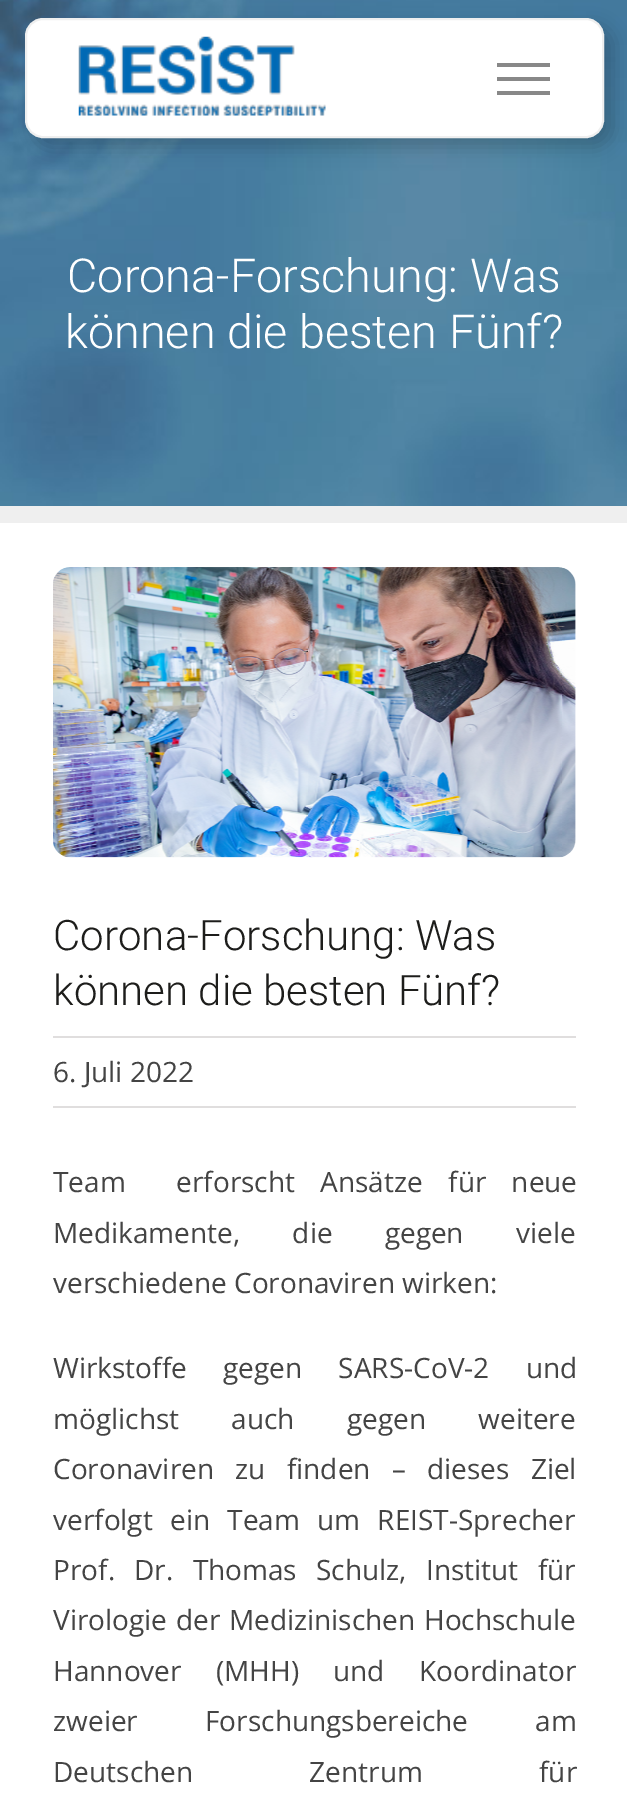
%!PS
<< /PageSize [627 1815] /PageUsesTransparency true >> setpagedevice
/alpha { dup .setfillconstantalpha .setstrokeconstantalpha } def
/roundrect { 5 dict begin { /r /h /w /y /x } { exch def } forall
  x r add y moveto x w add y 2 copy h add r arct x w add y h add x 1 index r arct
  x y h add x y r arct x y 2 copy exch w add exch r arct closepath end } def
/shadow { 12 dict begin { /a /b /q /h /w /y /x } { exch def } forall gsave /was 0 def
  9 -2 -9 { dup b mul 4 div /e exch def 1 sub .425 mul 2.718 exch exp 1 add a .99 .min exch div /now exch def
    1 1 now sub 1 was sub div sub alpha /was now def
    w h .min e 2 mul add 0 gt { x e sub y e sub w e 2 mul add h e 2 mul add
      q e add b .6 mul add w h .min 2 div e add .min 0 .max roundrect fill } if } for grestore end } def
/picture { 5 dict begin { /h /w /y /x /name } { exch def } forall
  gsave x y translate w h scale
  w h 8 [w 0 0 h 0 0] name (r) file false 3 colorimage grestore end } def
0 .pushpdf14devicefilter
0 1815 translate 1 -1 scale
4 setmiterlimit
1 setgray
0 0 627 1815 rectfill
(img2.rgb) 0 0 627 506 picture
0 setgray
33 26 580 121 18 9 0.2 shadow
1 setgray
26 19 577 118 17 roundrect gsave fill grestore
0.937 setgray
2 setlinewidth
stroke
(img1.rgb) 78 36 248 80 picture
0.533 setgray
497 63 53 4 rectfill
497 77 53 4 rectfill
497 91 53 4 rectfill
0.937 setgray
0 506 627 17 rectfill
/Roboto-Light [46.75 0 0 -46.75 0 0] selectfont
1 setgray
67 292 moveto (Corona-Forschung: Was) show
65 348 moveto (können die besten Fünf?) show
(img3.rgb) 53 567 523 291 picture
/Roboto-Light [42 0 0 -42 0 0] selectfont
0.114 0.114 0.106 setrgbcolor
53 950 moveto (Corona-Forschung: Was) show
53 1005 moveto (können die besten Fünf?) show
0.878 0.871 0.871 setrgbcolor
53 1036 523 2 rectfill
53 1106 523 2 rectfill
/OpenSans-Regular [28 0 0 -28 0 0] selectfont
0.267 setgray
53 1082 moveto (6. Juli 2022) show
53 1192 moveto 18 0 32 (Team  erforscht Ansätze für neue) widthshow
53 1243 moveto 45 0 32 (Medikamente, die gegen viele) widthshow
53 1293 moveto (verschiedene Coronaviren wirken:) show
53 1378 moveto 29 0 32 (Wirkstoffe gegen SARS-CoV-2 und) widthshow
53 1429 moveto 45 0 32 (möglichst auch gegen weitere) widthshow
53 1479 moveto 14 0 32 (Coronaviren zu finden – dieses Ziel) widthshow
53 1530 moveto 10 0 32 (verfolgt ein Team um REIST-Sprecher) widthshow
53 1580 moveto 12 0 32 (Prof. Dr. Thomas Schulz, Institut für) widthshow
53 1630 moveto 1.5 0 32 (Virologie der Medizinischen Hochschule) widthshow
53 1681 moveto 27 0 32 (Hannover \(MHH\) und Koordinator) widthshow
53 1731 moveto 60 0 32 (zweier Forschungsbereiche am) widthshow
53 1782 moveto 109 0 32 (Deutschen Zentrum für) widthshow
.poppdf14devicefilter showpage
